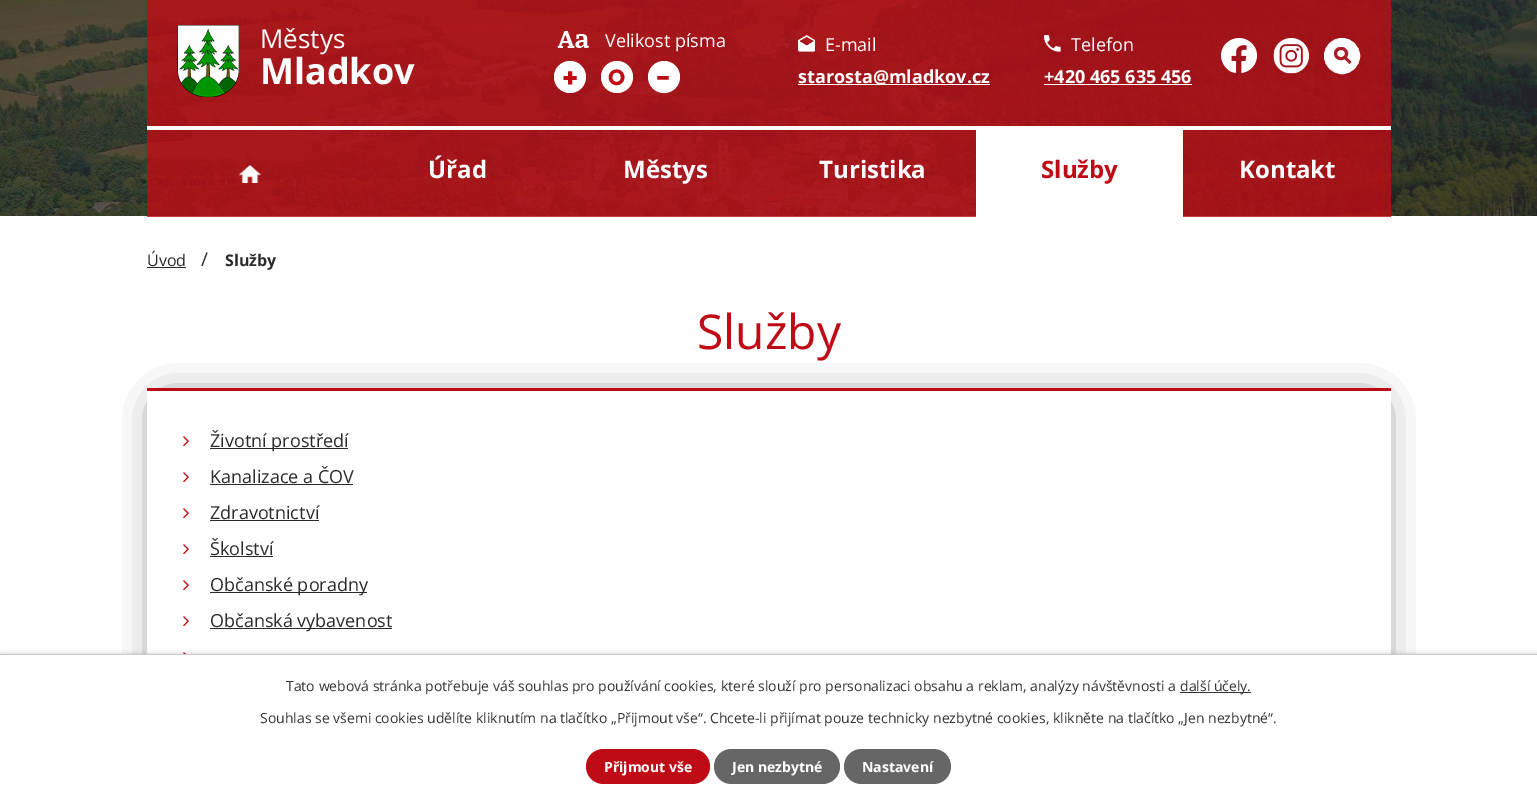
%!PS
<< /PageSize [1537 803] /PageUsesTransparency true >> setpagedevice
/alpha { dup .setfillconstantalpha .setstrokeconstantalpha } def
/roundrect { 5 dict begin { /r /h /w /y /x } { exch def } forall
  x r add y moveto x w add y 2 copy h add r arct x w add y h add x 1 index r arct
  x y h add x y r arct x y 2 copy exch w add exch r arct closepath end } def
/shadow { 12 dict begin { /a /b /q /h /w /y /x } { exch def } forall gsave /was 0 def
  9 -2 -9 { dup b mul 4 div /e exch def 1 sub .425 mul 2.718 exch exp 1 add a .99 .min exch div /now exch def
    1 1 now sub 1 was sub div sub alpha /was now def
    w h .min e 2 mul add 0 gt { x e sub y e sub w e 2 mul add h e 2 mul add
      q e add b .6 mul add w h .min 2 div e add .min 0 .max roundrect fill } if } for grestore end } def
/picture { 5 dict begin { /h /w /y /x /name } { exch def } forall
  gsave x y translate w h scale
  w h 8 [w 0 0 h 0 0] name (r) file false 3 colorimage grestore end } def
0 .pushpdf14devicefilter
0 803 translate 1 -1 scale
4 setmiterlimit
1 setgray
0 0 1537 803 rectfill
(img1.rgb) 0 0 1537 216 picture
0.8 alpha
0.745 0.043 0.078 setrgbcolor
147 0 1244 126 rectfill
1 alpha
1 setgray
147 126 1244 4 rectfill
(img2.rgb) 177 25 62 72 picture
/OpenSans-Regular [26 0 0 -26 0 0] selectfont
260 48 moveto (Městys) show
/OpenSans-Bold [36 0 0 -36 0 0] selectfont
260 84 moveto (Mladkov) show
(img3.rgb) 557 31 32 17 picture
/OpenSans-Regular [18 0 0 -18 0 0] selectfont
605 47 moveto (Velikost písma) show
newpath 570 77 16 0 360 arc closepath fill
/Poppins-Bold [26 0 0 -26 0 0] selectfont
0.745 0.043 0.082 setrgbcolor
562 87 moveto (+) show
1 setgray
newpath 617 77 16 0 360 arc closepath fill
/Poppins-Bold [22 0 0 -22 0 0] selectfont
0.745 0.043 0.082 setrgbcolor
608 85 moveto (O) show
1 setgray
newpath 664 77 16 0 360 arc closepath fill
/Poppins-Bold [26 0 0 -26 0 0] selectfont
0.745 0.043 0.082 setrgbcolor
656 87 moveto (-) show
(img4.rgb) 798 35 17 17 picture
/OpenSans-Regular [18 0 0 -18 0 0] selectfont
1 setgray
825 51 moveto (E-mail) show
798 84 192 1 rectfill
/OpenSans-Bold [18 0 0 -18 0 0] selectfont
798 83 moveto (starosta@mladkov.cz) show
(img5.rgb) 1044 35 17 17 picture
/OpenSans-Regular [18 0 0 -18 0 0] selectfont
1071 51 moveto (Telefon) show
/OpenSans-Bold [18 0 0 -18 0 0] selectfont
1044 83 moveto (+420 465 635 456) show
1044 84 148 1 rectfill
(img6.rgb) 1221 38 36 35 picture
(img7.rgb) 1273 38 36 36 picture
newpath 1342 56 17.5 0 360 arc closepath gsave fill grestore
stroke
0.655 0.118 0.161 setrgbcolor
3 setlinewidth
1335.5 48.5 11 10 5 roundrect stroke
newpath 1346 56.5 moveto 1351.5 62 lineto 1349.5 64 lineto 1344 58.5 lineto closepath fill
0.8 alpha
0.745 0.043 0.078 setrgbcolor
147 130 1244 87 rectfill
1 alpha
(img8.rgb) 239 165 22 18 picture
/OpenSans-Bold [24 0 0 -24 0 0] selectfont
1 setgray
428 178 moveto (Úřad) show
623 178 moveto (Městys) show
819 178 moveto (Turistika) show
976 130 207 87 rectfill
0.745 0.043 0.082 setrgbcolor
1041 178 moveto (Služby) show
1 setgray
1239 178 moveto (Kontakt) show
/OpenSans-Regular [16 0 0 -16 0 0] selectfont
0.165 setgray
147 266 moveto (Úvod) show
147 267 39 1 rectfill
/OpenSans-Regular [19 0 0 -19 0 0] selectfont
201 266 moveto (/) show
/OpenSans-Bold [16 0 0 -16 0 0] selectfont
225 266 moveto (Služby) show
gsave
newpath 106 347 moveto 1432 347 lineto 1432 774 lineto 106 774 lineto closepath 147 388 moveto 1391 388 lineto 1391 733 lineto 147 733 lineto closepath eoclip newpath
0 setgray
167 408 1204 305 0 20 1 shadow
grestore
/OpenSans-Regular [48 0 0 -48 0 0] selectfont
0.745 0.043 0.082 setrgbcolor
697 349 moveto (Služby) show
147 388 1244 3 rectfill
(img9.rgb) 183 436 6 11 picture
0.165 setgray
210 448 138 1 rectfill
/OpenSans-Regular [18 0 0 -18 0 0] selectfont
210 447 moveto (Životní prostředí) show
(img9.rgb) 183 472 6 11 picture
210 483 moveto (Kanalizace a ČOV) show
210 484 143 1 rectfill
(img9.rgb) 183 508 6 11 picture
210 519 moveto (Zdravotnictví) show
210 520 109 1 rectfill
(img9.rgb) 183 544 6 11 picture
210 555 moveto (Školství) show
210 556 63 1 rectfill
(img9.rgb) 183 580 6 11 picture
210 592 157 1 rectfill
210 591 moveto (Občanské poradny) show
(img9.rgb) 183 616 6 11 picture
210 628 182 1 rectfill
210 627 moveto (Občanská vybavenost) show
(img10.rgb) 183 652 3 2 picture
0 setgray
0 654 1537 149 0 2.5 0.2 shadow
1 setgray
0 655 1537 148 rectfill
0.8 setgray
0 654 1537 1 rectfill
/OpenSans-Regular [14 0 0 -14 0 0] selectfont
0.2 setgray
286 691 moveto (Tato webová stránka potřebuje váš souhlas pro používání cookies, které slouží pro personalizaci obsahu a reklam, analýzy návštěvnosti a) show
1180 692 71 1 rectfill
1180 691 moveto (další účely.) show
260 723 moveto (Souhlas se všemi cookies udělíte kliknutím na tlačítko „Přijmout vše“. Chcete-li přijímat pouze technicky nezbytné cookies, klikněte na tlačítko „Jen nezbytné“.) show
0.745 0.043 0.082 setrgbcolor
586 749 124 35 17.5 roundrect fill
/OpenSans-Bold [14 0 0 -14 0 0] selectfont
1 setgray
604 772 moveto (Přijmout vše) show
0.4 setgray
714 749 126 35 17.5 roundrect fill
1 setgray
732 772 moveto (Jen nezbytné) show
0.4 setgray
844 749 107 35 17.5 roundrect fill
1 setgray
862 772 moveto (Nastavení) show
.poppdf14devicefilter showpage
